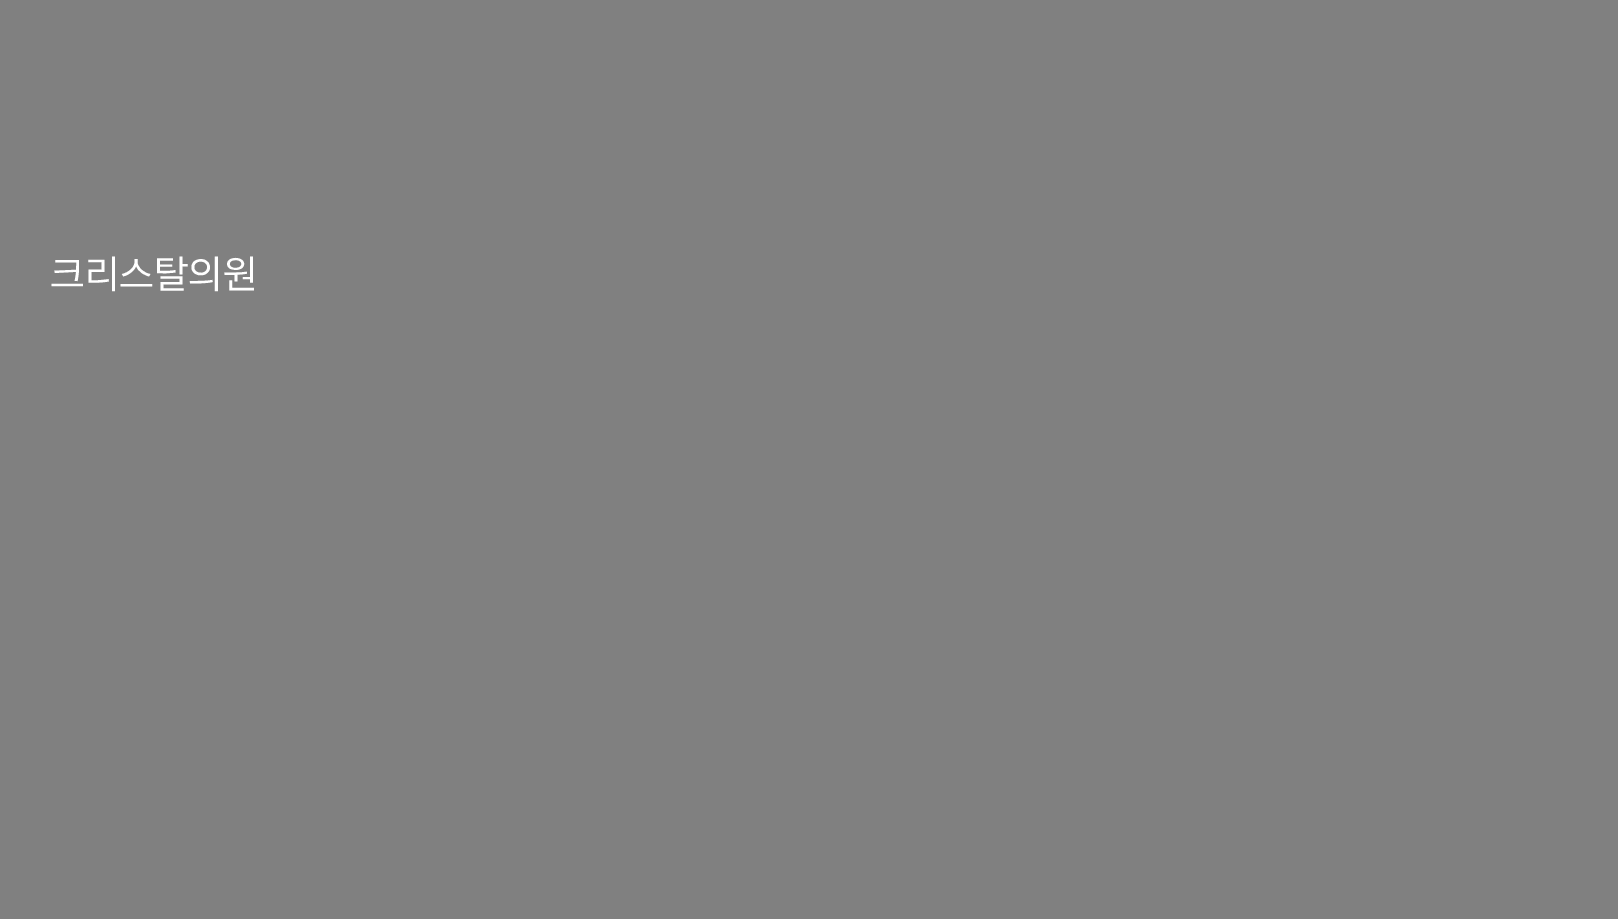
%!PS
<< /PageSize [1618 919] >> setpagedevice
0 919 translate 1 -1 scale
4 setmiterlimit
0.502 setgray
0 0 1618 919 rectfill
/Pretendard-Regular [40 0 0 -40 0 0] selectfont
1 setgray
50 288 moveto (크리스탈의원) show
showpage
